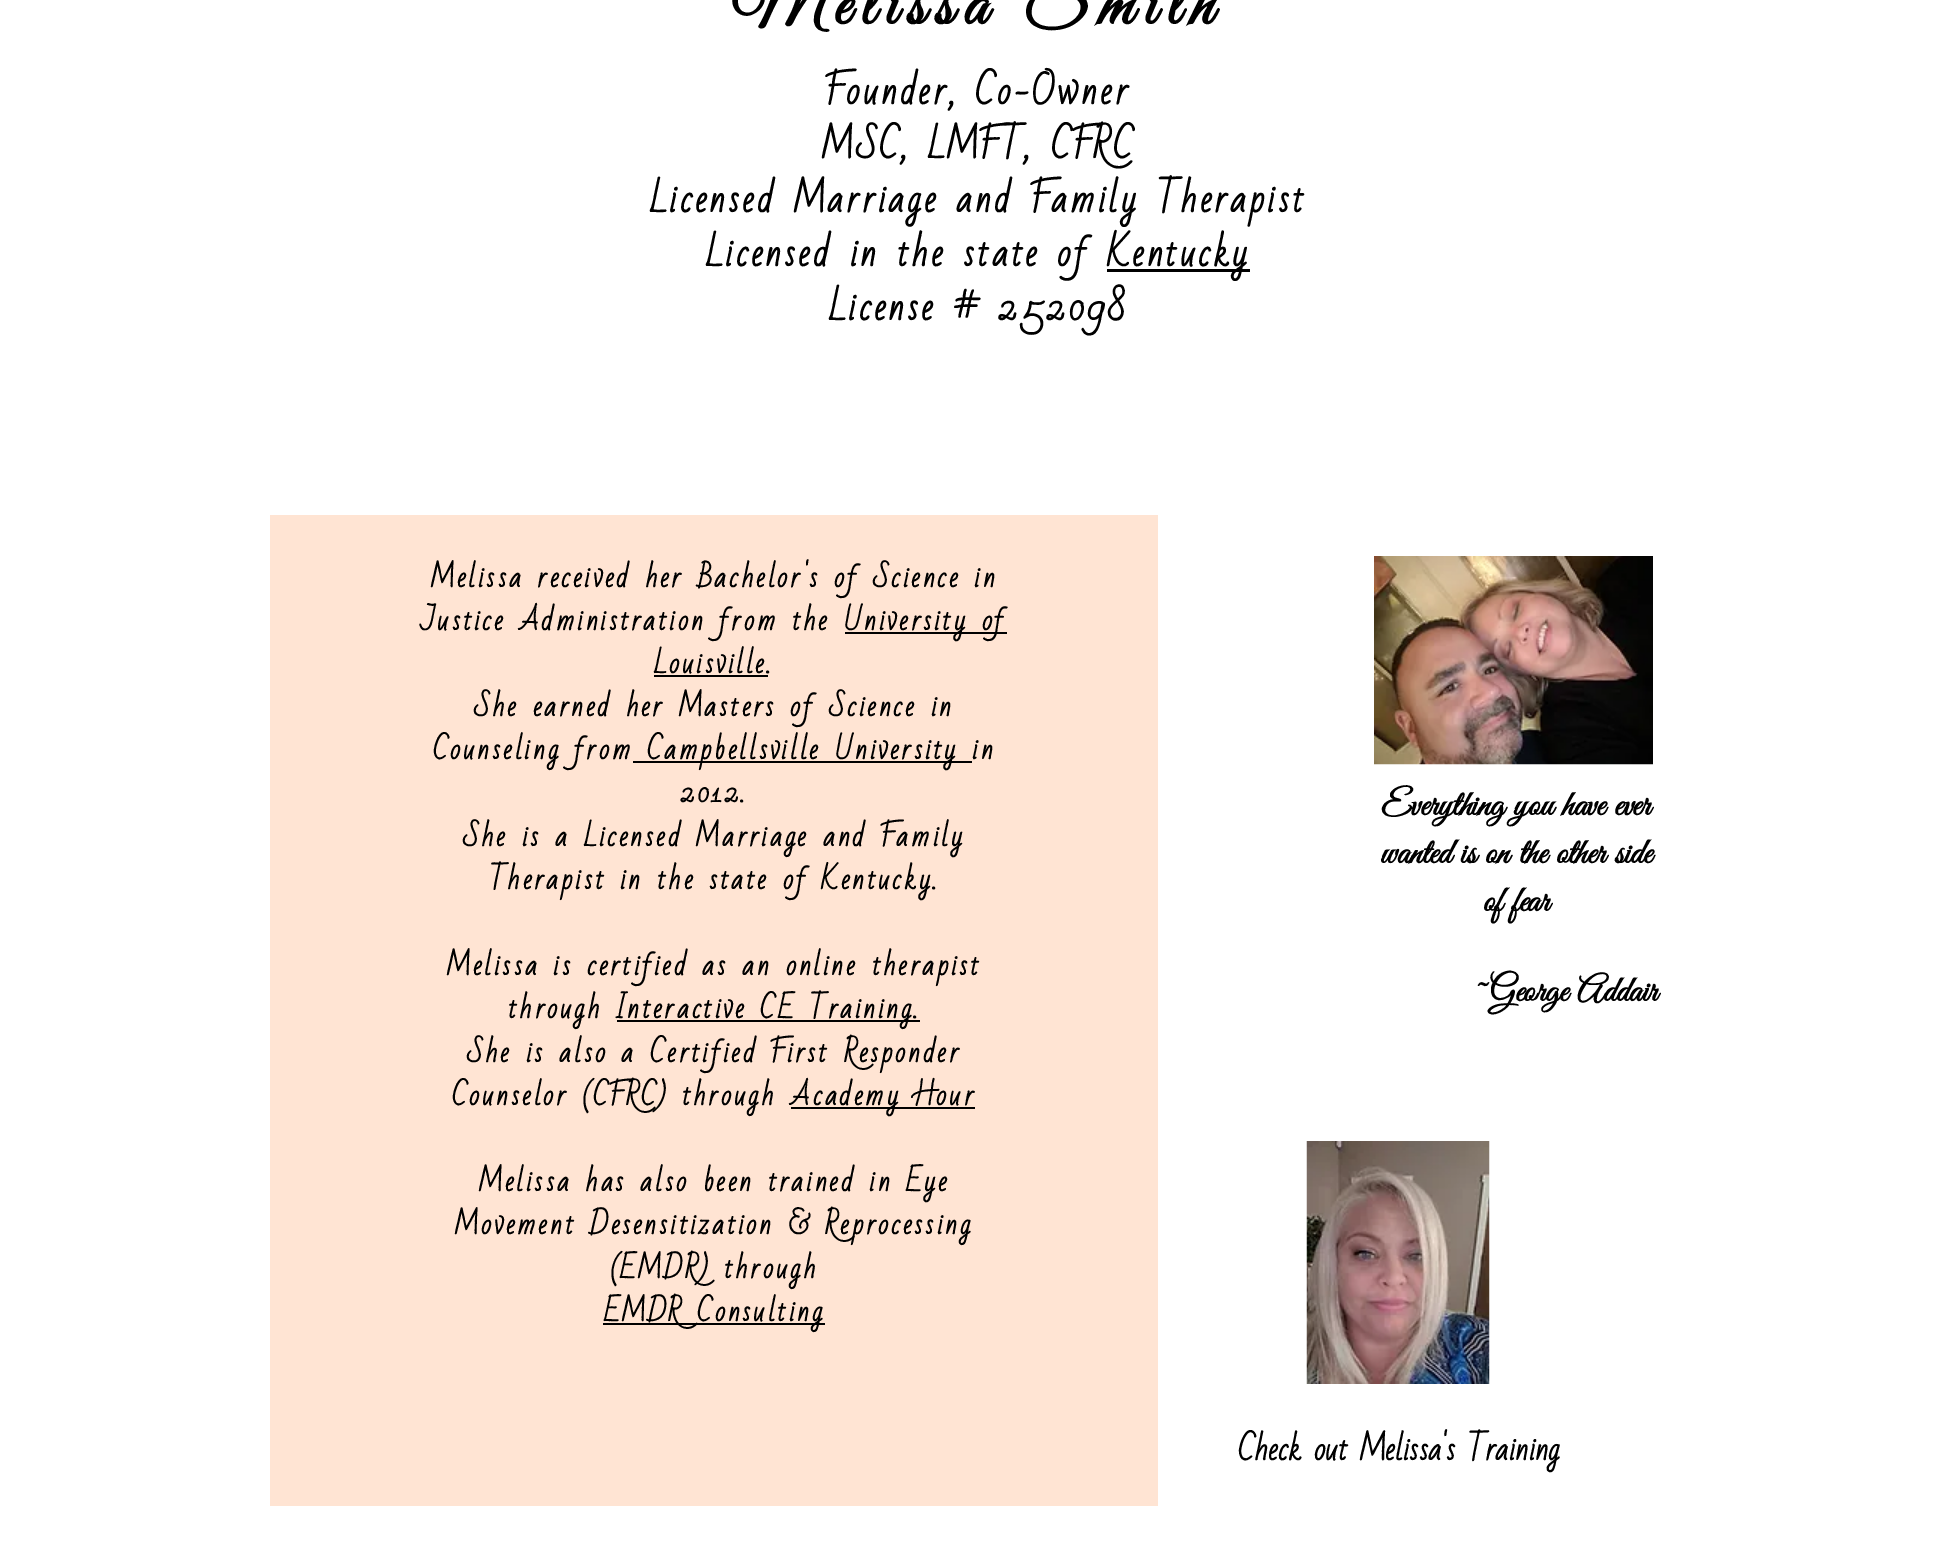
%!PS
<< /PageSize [1949 1555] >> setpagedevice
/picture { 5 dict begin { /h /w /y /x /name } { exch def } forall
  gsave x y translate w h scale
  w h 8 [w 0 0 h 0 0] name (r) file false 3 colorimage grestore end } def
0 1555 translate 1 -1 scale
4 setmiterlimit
1 setgray
0 0 1949 1555 rectfill
/GreatVibes-Bold [69 0 0 -69 0 0] selectfont
0 setgray
731 24 moveto 10.3 0 (Melissa Smith) ashow
/BadScript-Bold [36 0 0 -36 0 0] selectfont
826 104 moveto 2.9 0 (Founder, Co-Owner) ashow
822 158 moveto 2.9 0 (MSC, LMFT, CFRC) ashow
650 212 moveto 2.9 0 (Licensed Marriage and Family Therapist) ashow
706 266 moveto 2.9 0 (Licensed in the state of) ashow
1107 269 143 3 rectfill
1107 266 moveto 2.9 0 (Kentucky) ashow
829 320 moveto 2.9 0 (License # 252098) ashow
1 0.894 0.827 setrgbcolor
270 515 888 991 rectfill
/BadScript-Bold [27 0 0 -27 0 0] selectfont
0 setgray
431 587 moveto 2.7 0 (Melissa received her Bachelor's of Science in) ashow
421 630 moveto 2.7 0 (Justice Administration from the) ashow
845 632 162 2 rectfill
844 630 moveto 2.7 0 (University of) ashow
654 673 moveto 2.7 0 (Louisville.) ashow
654 675 114 2 rectfill
474 716 moveto 2.7 0 (She earned her Masters of Science in) ashow
433 759 moveto 2.7 0 (Counseling from) ashow
633 761 339 2 rectfill
647 759 moveto 2.7 0 (Campbellsville University in) ashow
681 802 moveto 2.7 0 (2012.) ashow
463 846 moveto 2.7 0 (She is a Licensed Marriage and Family) ashow
489 889 moveto 2.7 0 (Therapist in the state of Kentucky.) ashow
447 975 moveto 2.7 0 (Melissa is certified as an online therapist) ashow
508 1018 moveto 2.7 0 (through) ashow
617 1020 303 2 rectfill
617 1018 moveto 2.7 0 (Interactive CE Training.) ashow
467 1062 moveto 2.7 0 (She is also a Certified First Responder) ashow
452 1105 moveto 2.7 0 (Counselor \(CFRC\) through) ashow
791 1107 184 2 rectfill
791 1105 moveto 2.7 0 (Academy Hour) ashow
479 1191 moveto 2.7 0 (Melissa has also been trained in Eye) ashow
455 1234 moveto 2.7 0 (Movement Desensitization & Reprocessing) ashow
610 1278 moveto 2.7 0 (\(EMDR\) through) ashow
603 1323 222 2 rectfill
604 1321 moveto 2.7 0 (EMDR Consulting) ashow
(img1.rgb) 1374 556 279 209 picture
/GreatVibes-Bold [36 0 0 -36 0 0] selectfont
1381 815 moveto (Everything you have ever) show
1380 863 moveto (wanted is on the other side) show
1483 911 moveto (of fear) show
1472 1001 moveto (~George Addair) show
(img2.rgb) 1306 1141 184 243 picture
/BadScript-Bold [30 0 0 -30 0 0] selectfont
1238 1460 moveto (Check out Melissa's Training) show
showpage
